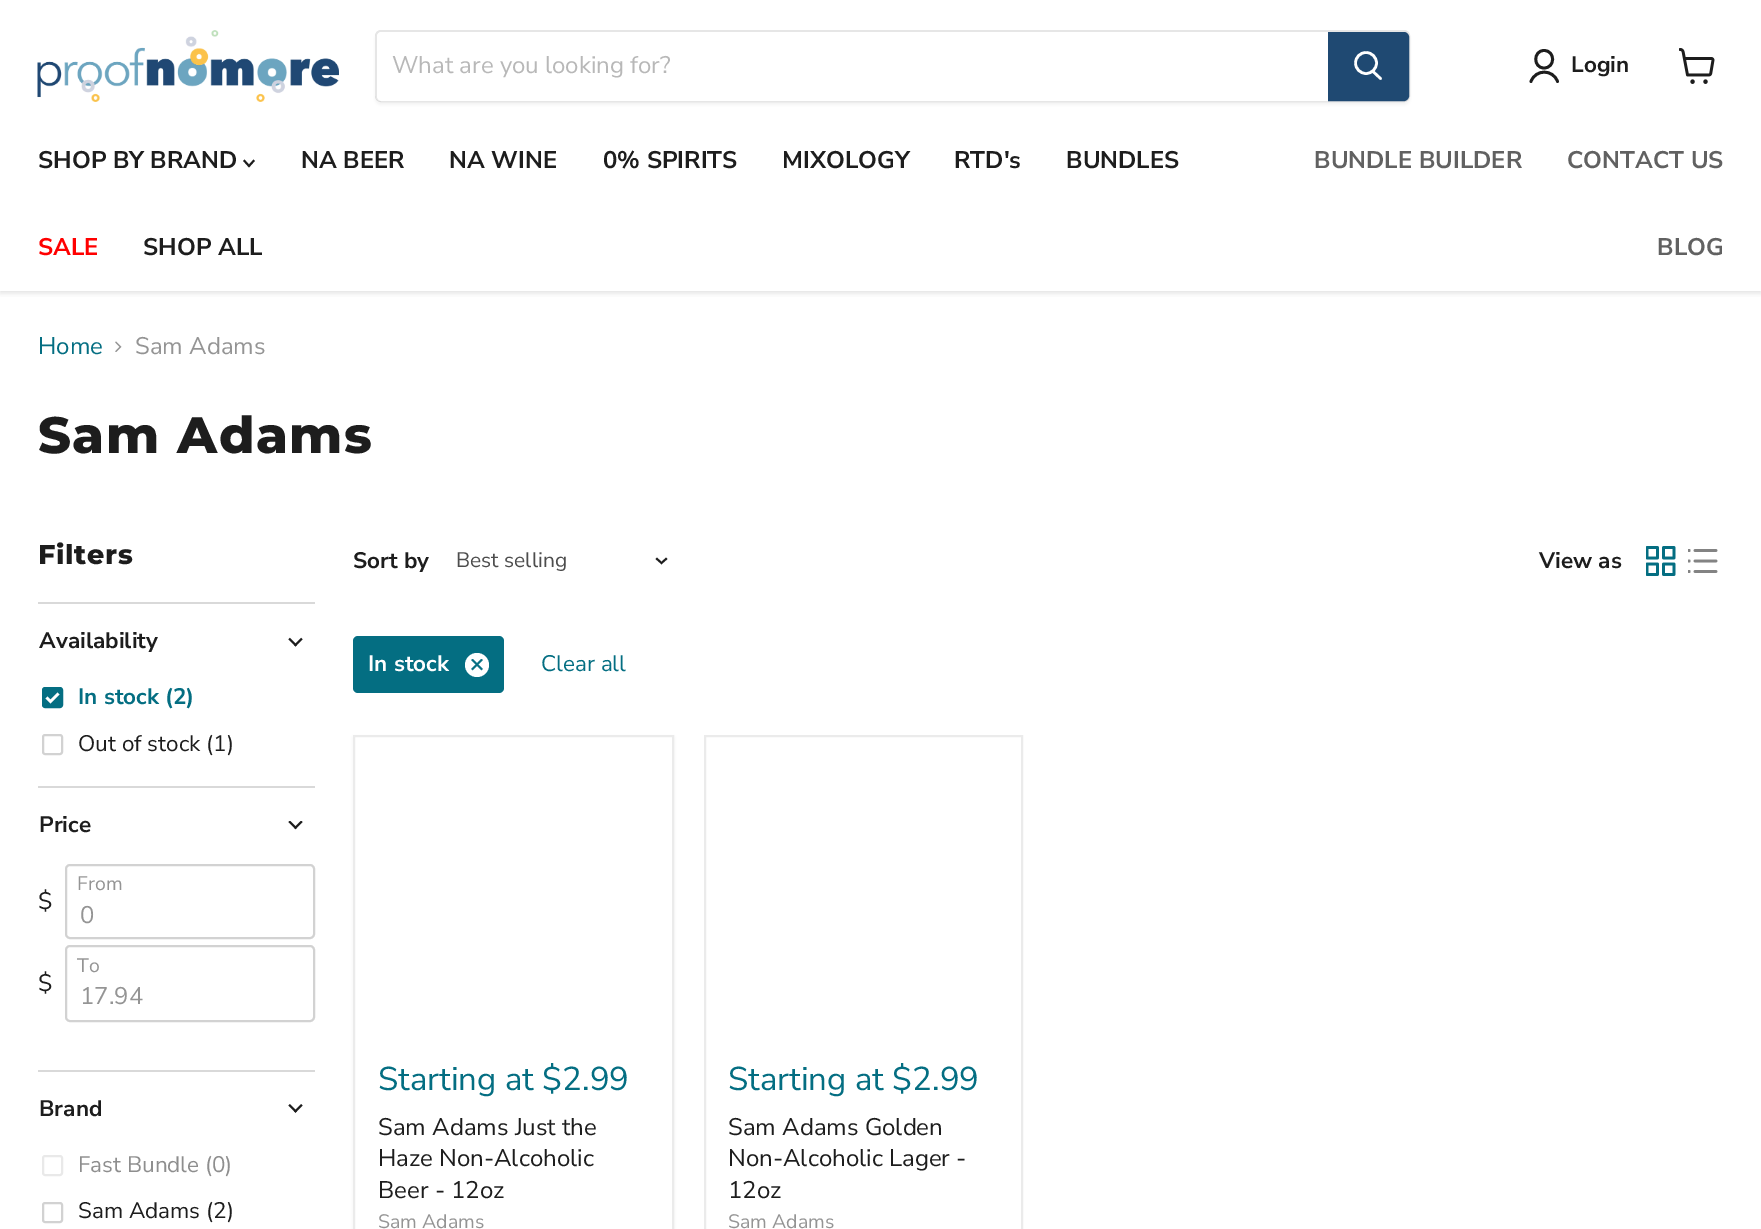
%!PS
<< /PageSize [1761 1229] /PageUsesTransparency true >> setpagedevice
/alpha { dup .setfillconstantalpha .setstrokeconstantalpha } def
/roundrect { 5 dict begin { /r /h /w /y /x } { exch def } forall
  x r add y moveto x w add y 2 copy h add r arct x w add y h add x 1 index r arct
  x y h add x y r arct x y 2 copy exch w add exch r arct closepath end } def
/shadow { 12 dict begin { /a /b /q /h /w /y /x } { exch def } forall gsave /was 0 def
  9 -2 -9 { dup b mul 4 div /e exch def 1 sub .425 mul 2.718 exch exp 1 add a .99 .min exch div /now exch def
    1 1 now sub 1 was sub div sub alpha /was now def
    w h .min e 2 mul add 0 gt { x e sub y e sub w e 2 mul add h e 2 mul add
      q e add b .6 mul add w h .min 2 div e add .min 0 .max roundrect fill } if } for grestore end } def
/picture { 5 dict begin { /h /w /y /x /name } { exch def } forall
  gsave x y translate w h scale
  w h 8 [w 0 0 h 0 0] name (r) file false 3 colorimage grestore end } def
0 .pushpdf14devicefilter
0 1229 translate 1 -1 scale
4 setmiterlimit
1 setgray
0 0 1761 1229 rectfill
gsave
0 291 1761 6 rectclip
0.502 setgray
0 2 1761 291 0 3 0.25 shadow
grestore
(img1.rgb) 37 30 302 72 picture
gsave
newpath 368 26 moveto 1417 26 lineto 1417 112 lineto 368 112 lineto closepath 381 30 moveto 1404 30 lineto 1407.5 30 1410 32.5 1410 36 curveto 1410 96 lineto 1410 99.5 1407.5 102 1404 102 curveto 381 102 lineto 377.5 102 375 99.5 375 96 curveto 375 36 lineto 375 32.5 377.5 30 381 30 curveto closepath eoclip newpath
0.502 setgray
375 33 1035 72 6 2 0.11 shadow
grestore
0.2 alpha
0.502 setgray
2 setlinewidth
376 31 1033 70 5 roundrect stroke
1 alpha
1 setgray
newpath 382 32 moveto 1328 32 lineto 1328 101 lineto 382 101 lineto 379 101 377 99 377 96 curveto 377 37 lineto 377 34 379 32 382 32 curveto closepath fill
/NunitoSans-Regular [24 0 0 -24 0 0] selectfont
0.722 setgray
392 73 moveto (What are you looking for?) show
0.122 0.286 0.447 setrgbcolor
newpath 1329 33 moveto 1404 33 lineto 1406 33 1408 35 1408 37 curveto 1408 96 lineto 1408 98 1406 100 1404 100 curveto 1329 100 lineto closepath gsave fill grestore
stroke
1 setgray
2.6 setlinewidth
1 setlinecap
newpath 1380.5 78.5 moveto 1373 71.5 lineto stroke
0 setlinecap
newpath 1366 63 10.5 0 360 arc closepath stroke
0.114 setgray
2.8 setlinewidth
1 setlinecap
1 setlinejoin
newpath 1544 68 moveto 1555.5 68 1555.5 50.5 1544 50.5 curveto 1533 50.5 1533 68 1544 68 curveto closepath 1557.5 81.5 moveto 1553 69 1535.5 69 1531 81.5 curveto stroke
/NunitoSans-Bold [22.5 0 0 -22.5 0 0] selectfont
1571 72 moveto (Login) show
(img2.rgb) 1679 48 36 36 picture
/NunitoSans-Bold [24 0 0 -24 0 0] selectfont
38 168 moveto (SHOP BY BRAND) show
1.9 setlinewidth
2 setlinecap
0 setlinejoin
newpath 249 166 moveto 253.5 161 lineto 249 166 moveto 244.5 161 lineto stroke
301 168 moveto (NA BEER) show
449 168 moveto (NA WINE) show
603 168 moveto (0% SPIRITS) show
782 168 moveto (MIXOLOGY) show
954 168 moveto (RTD's) show
1066 168 moveto (BUNDLES) show
1 0 0 setrgbcolor
38 255 moveto (SALE) show
0.114 setgray
143 255 moveto (SHOP ALL) show
0.38 setgray
1314 168 moveto (BUNDLE BUILDER) show
1567 168 moveto (CONTACT US) show
1657 255 moveto (BLOG) show
/NunitoSans-Regular [24 0 0 -24 0 0] selectfont
0.016 0.431 0.51 setrgbcolor
38 354 moveto (Home) show
(img3.rgb) 115 341 7 11 picture
0.58 setgray
135 354 moveto (Sam Adams) show
/Montserrat-ExtraBold [51 0 0 -51 0 0] selectfont
0.114 setgray
38 453 moveto 1.5 0 (Sam Adams) ashow
/Montserrat-ExtraBold [27 0 0 -27 0 0] selectfont
38 564 moveto 0.75 0 (Filters) ashow
0.851 setgray
38 602 277 2 rectfill
/NunitoSans-Bold [22.5 0 0 -22.5 0 0] selectfont
0.114 setgray
39 648 moveto (Availability) show
(img4.rgb) 288 637 15 10 picture
0.016 0.431 0.51 setrgbcolor
43 688 19 19 2 roundrect gsave fill grestore
2 setlinewidth
0 setlinecap
stroke
1 setgray
2.6 setlinewidth
newpath 46.5 697.5 moveto 50.5 701.5 lineto 58.5 693.5 lineto stroke
0.016 0.431 0.51 setrgbcolor
78 704 moveto (In stock \(2\)) show
0.824 setgray
2 setlinewidth
43 735 19 19 2 roundrect stroke
/NunitoSans-Regular [22.5 0 0 -22.5 0 0] selectfont
0.114 setgray
78 751 moveto (Out of stock \(1\)) show
0.851 setgray
38 786 277 2 rectfill
/NunitoSans-Bold [22.5 0 0 -22.5 0 0] selectfont
0.114 setgray
39 832 moveto (Price) show
(img5.rgb) 288 821 15 9 picture
0.824 setgray
66 865 248 73 4 roundrect stroke
/NunitoSans-Regular [19.5 0 0 -19.5 0 0] selectfont
0.58 setgray
77 890 moveto (From) show
/NunitoSans-Regular [24 0 0 -24 0 0] selectfont
0.114 setgray
38 909 moveto ($) show
0.58 setgray
80 923 moveto (0) show
0.824 setgray
66 946 248 75 4 roundrect stroke
/NunitoSans-Regular [19.5 0 0 -19.5 0 0] selectfont
0.58 setgray
77 972 moveto (To) show
/NunitoSans-Regular [24 0 0 -24 0 0] selectfont
0.114 setgray
38 991 moveto ($) show
0.58 setgray
80 1004 moveto (17.94) show
0.851 setgray
38 1070 277 2 rectfill
/NunitoSans-Bold [22.5 0 0 -22.5 0 0] selectfont
0.114 setgray
39 1116 moveto (Brand) show
(img6.rgb) 288 1104 15 9 picture
0.914 setgray
43 1156 19 19 2 roundrect stroke
/NunitoSans-Regular [22.5 0 0 -22.5 0 0] selectfont
0.557 setgray
78 1172 moveto (Fast Bundle \(0\)) show
0.824 setgray
43 1203 19 19 2 roundrect stroke
0.114 setgray
78 1218 moveto (Sam Adams \(2\)) show
/NunitoSans-Bold [22.5 0 0 -22.5 0 0] selectfont
353 568 moveto (Sort by) show
/NunitoSans-Regular [21 0 0 -21 0 0] selectfont
0.302 setgray
456 567 moveto (Best selling) show
0.114 setgray
1.9 setlinewidth
2 setlinecap
newpath 661.5 563 moveto 666 559 lineto 661.5 563 moveto 657 559 lineto stroke
/NunitoSans-Bold [22.5 0 0 -22.5 0 0] selectfont
1539 568 moveto (View as) show
(img7.rgb) 1646 546 30 30 picture
(img8.rgb) 1688 549 30 24 picture
0.016 0.431 0.51 setrgbcolor
353 636 151 57 5 roundrect fill
1 setgray
368 671 moveto (In stock) show
newpath 477 665 12 0 360 arc closepath fill
(img9.rgb) 471 659 12 12 picture
/NunitoSans-Regular [22.5 0 0 -22.5 0 0] selectfont
0.016 0.431 0.51 setrgbcolor
541 671 moveto (Clear all) show
0.502 setgray
353 737 321 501 0 3 0.11 shadow
1 setgray
newpath 354 736 moveto 673 736 lineto 673 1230 lineto 354 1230 lineto closepath gsave fill grestore
0.922 setgray
2 setlinewidth
0 setlinecap
stroke
/NunitoSans-Regular [33 0 0 -33 0 0] selectfont
0.016 0.431 0.51 setrgbcolor
378 1090 moveto (Starting at $2.99) show
/NunitoSans-Regular [24 0 0 -24 0 0] selectfont
0.114 setgray
378 1135 moveto (Sam Adams Just the) show
378 1166 moveto (Haze Non-Alcoholic) show
378 1198 moveto (Beer - 12oz) show
/NunitoSans-Regular [19.5 0 0 -19.5 0 0] selectfont
0.58 setgray
378 1228 moveto (Sam Adams) show
0.922 setgray
705 736 317 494 rectstroke
/NunitoSans-Regular [33 0 0 -33 0 0] selectfont
0.016 0.431 0.51 setrgbcolor
728 1090 moveto (Starting at $2.99) show
/NunitoSans-Regular [24 0 0 -24 0 0] selectfont
0.114 setgray
728 1135 moveto (Sam Adams Golden) show
728 1166 moveto (Non-Alcoholic Lager -) show
728 1198 moveto (12oz) show
/NunitoSans-Regular [19.5 0 0 -19.5 0 0] selectfont
0.58 setgray
728 1228 moveto (Sam Adams) show
.poppdf14devicefilter showpage
